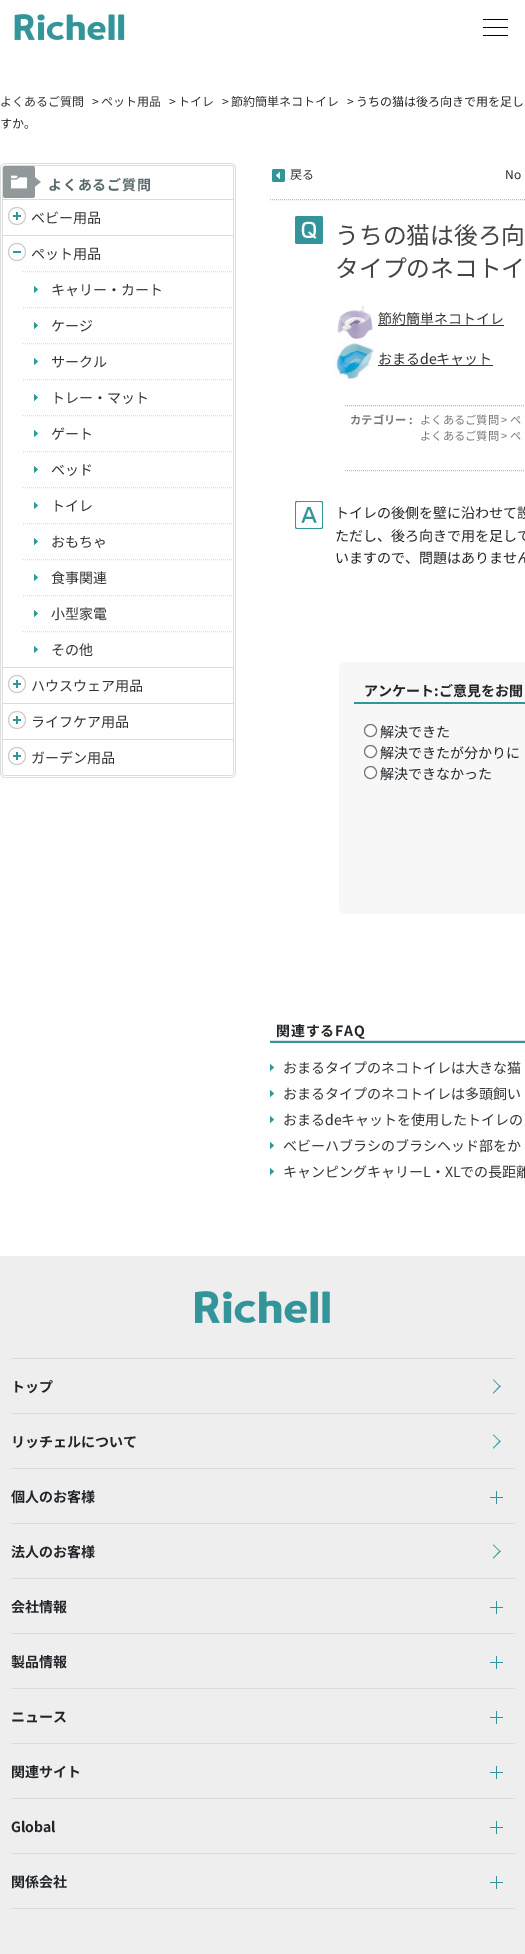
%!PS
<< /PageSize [525 1954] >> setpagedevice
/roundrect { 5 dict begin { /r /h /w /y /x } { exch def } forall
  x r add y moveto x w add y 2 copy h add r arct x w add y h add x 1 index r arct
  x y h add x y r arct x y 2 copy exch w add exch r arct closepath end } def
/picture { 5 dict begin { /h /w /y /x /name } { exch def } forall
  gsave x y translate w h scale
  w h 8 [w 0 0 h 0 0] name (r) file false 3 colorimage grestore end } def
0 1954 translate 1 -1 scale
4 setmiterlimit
1 setgray
0 0 525 1954 rectfill
(img1.rgb) 14 14 111 26 picture
0 setgray
483 19 25 1 rectfill
483 27 25 1 rectfill
483 35 25 1 rectfill
/NotoSansJP-Regular [12 0 0 -12 0 0] selectfont
0.2 setgray
0 106 moveto (よくあるご質問) show
0.129 0.145 0.161 setrgbcolor
92 106 moveto (>) show
0.2 setgray
101 106 moveto (ペット用品) show
0.129 0.145 0.161 setrgbcolor
169 106 moveto (>) show
0.2 setgray
178 106 moveto (トイレ) show
0.129 0.145 0.161 setrgbcolor
222 106 moveto (>) show
0.2 setgray
231 106 moveto (節約簡単ネコトイレ) show
0.129 0.145 0.161 setrgbcolor
347 106 moveto (> うちの猫は後ろ向きで用を足し) show
0 128 moveto (すか。) show
(img2.rgb) 0 167 236 611 picture
(img3.rgb) 0 163 236 4 picture
(img4.rgb) 3 166 38 32 picture
(img5.rgb) 11 175 16 14 picture
/NotoSansJP-Bold [14 0 0 -14 0 0] selectfont
0.345 0.404 0.42 setrgbcolor
48 190 moveto 0.75 0 (よくあるご質問) ashow
0.867 setgray
3 199 230 1 rectfill
(img6.rgb) 8 207 18 18 picture
/NotoSansJP-Regular [14 0 0 -14 0 0] selectfont
0.2 setgray
31 223 moveto (ベビー用品) show
0.867 setgray
3 235 230 1 rectfill
(img7.rgb) 8 243 18 18 picture
0.2 setgray
31 259 moveto (ペット用品) show
0.867 setgray
[1 1] 0 setdash
newpath 23 271.5 moveto 233 271.5 lineto stroke
(img8.rgb) 34 286 4 7 picture
0.2 setgray
51 295 moveto (キャリー・カート) show
0.867 setgray
newpath 23 307.5 moveto 233 307.5 lineto stroke
(img8.rgb) 34 322 4 7 picture
0.2 setgray
51 331 moveto (ケージ) show
0.867 setgray
newpath 23 343.5 moveto 233 343.5 lineto stroke
(img8.rgb) 34 358 4 7 picture
0.2 setgray
51 367 moveto (サークル) show
0.867 setgray
newpath 23 379.5 moveto 233 379.5 lineto stroke
(img8.rgb) 34 394 4 7 picture
0.2 setgray
51 403 moveto (トレー・マット) show
0.867 setgray
newpath 23 415.5 moveto 233 415.5 lineto stroke
(img8.rgb) 34 430 4 7 picture
0.2 setgray
51 439 moveto (ゲート) show
0.867 setgray
newpath 23 451.5 moveto 233 451.5 lineto stroke
(img8.rgb) 34 466 4 7 picture
0.2 setgray
51 475 moveto (ベッド) show
0.867 setgray
newpath 23 487.5 moveto 233 487.5 lineto stroke
(img8.rgb) 34 502 4 7 picture
0.2 setgray
51 511 moveto (トイレ) show
0.867 setgray
newpath 23 523.5 moveto 233 523.5 lineto stroke
(img8.rgb) 34 538 4 7 picture
0.2 setgray
51 547 moveto (おもちゃ) show
0.867 setgray
newpath 23 559.5 moveto 233 559.5 lineto stroke
(img8.rgb) 34 574 4 7 picture
0.2 setgray
51 583 moveto (食事関連) show
0.867 setgray
newpath 23 595.5 moveto 233 595.5 lineto stroke
(img8.rgb) 34 610 4 7 picture
0.2 setgray
51 619 moveto (小型家電) show
0.867 setgray
newpath 23 631.5 moveto 233 631.5 lineto stroke
(img8.rgb) 34 646 4 7 picture
0.2 setgray
51 655 moveto (その他) show
0.867 setgray
3 667 230 1 rectfill
(img6.rgb) 8 675 18 18 picture
0.2 setgray
31 691 moveto (ハウスウェア用品) show
0.867 setgray
3 703 230 1 rectfill
(img6.rgb) 8 711 18 18 picture
0.2 setgray
31 727 moveto (ライフケア用品) show
0.867 setgray
3 739 230 1 rectfill
(img6.rgb) 8 747 18 18 picture
0.2 setgray
31 763 moveto (ガーデン用品) show
0.733 setgray
newpath 270 199.5 moveto 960 199.5 lineto stroke
(img9.rgb) 272 169 13 13 picture
/NotoSansJP-Regular [12 0 0 -12 0 0] selectfont
0.2 setgray
290 179 moveto (戻る) show
0.129 0.145 0.161 setrgbcolor
505 179 moveto (No) show
(img10.rgb) 295 216 28 28 picture
/NotoSansJP-Regular [23.75 0 0 -23.75 0 0] selectfont
0.267 setgray
335 244 moveto (うちの猫は後ろ向) show
335 277 moveto (タイプのネコトイ) show
(img11.rgb) 337 305 36 35 picture
0.2 setgray
378 325 126 1 rectfill
/NotoSansJP-Regular [14 0 0 -14 0 0] selectfont
378 324 moveto (節約簡単ネコトイレ) show
(img12.rgb) 335 341 39 39 picture
378 365 115 1 rectfill
378 364 moveto (おまるdeキャット) show
0.733 setgray
newpath 345 405.5 moveto 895 405.5 lineto stroke
newpath 345 470.5 moveto 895 470.5 lineto stroke
/NotoSansJP-Bold [11.25 0 0 -11.25 0 0] selectfont
0.463 setgray
350 424 moveto (カテゴリー :) show
/NotoSansJP-Regular [11.25 0 0 -11.25 0 0] selectfont
420 424 moveto (よくあるご質問 > ペ) show
420 440 moveto (よくあるご質問 > ペ) show
(img13.rgb) 295 501 28 28 picture
/NotoSansJP-Regular [14 0 0 -14 0 0] selectfont
0.129 0.145 0.161 setrgbcolor
335 518 moveto (トイレの後側を壁に沿わせて設) show
335 541 moveto (ただし、後ろ向きで用を足して) show
335 563 moveto (いますので、問題はありません) show
0.969 setgray
339 662 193 252 7 roundrect fill
0.2 0.584 0.6 setrgbcolor
354 702 171 2 rectfill
/NotoSansJP-Bold [14 0 0 -14 0 0] selectfont
0.129 0.145 0.161 setrgbcolor
364 696 moveto (アンケート:ご意見をお聞) show
1 setgray
newpath 370.5 730.5 6 0 360 arc closepath gsave fill grestore
0.463 setgray
[] 0 setdash
stroke
/NotoSansJP-Regular [14 0 0 -14 0 0] selectfont
0.129 0.145 0.161 setrgbcolor
380 737 moveto (解決できた) show
1 setgray
newpath 370.5 751.5 6 0 360 arc closepath gsave fill grestore
0.463 setgray
stroke
0.129 0.145 0.161 setrgbcolor
380 758 moveto (解決できたが分かりに) show
1 setgray
newpath 370.5 772.5 6 0 360 arc closepath gsave fill grestore
0.463 setgray
stroke
0.129 0.145 0.161 setrgbcolor
380 779 moveto (解決できなかった) show
0.871 0.882 0.886 setrgbcolor
270 1040 255 1 rectfill
0.2 0.584 0.6 setrgbcolor
270 1041 255 2 rectfill
/NotoSansJP-Bold [14 0 0 -14 0 0] selectfont
0.129 0.145 0.161 setrgbcolor
276 1036 moveto 0.75 0 (関連するFAQ) ashow
(img8.rgb) 270 1064 4 7 picture
/NotoSansJP-Regular [14 0 0 -14 0 0] selectfont
0.2 setgray
283 1073 moveto (おまるタイプのネコトイレは大きな猫) show
(img8.rgb) 270 1090 4 7 picture
283 1099 moveto (おまるタイプのネコトイレは多頭飼い) show
(img8.rgb) 270 1116 4 7 picture
283 1125 moveto (おまるdeキャットを使用したトイレの) show
(img8.rgb) 270 1142 4 7 picture
283 1151 moveto (ベビーハブラシのブラシヘッド部をか) show
(img8.rgb) 270 1168 4 7 picture
283 1177 moveto (キャンピングキャリーL・XLでの長距離) show
0.933 setgray
0 1256 525 698 rectfill
(img14.rgb) 195 1291 135 32 picture
0.863 setgray
11 1358 504 1 rectfill
11 1413 504 1 rectfill
/NotoSansJP-Bold [14 0 0 -14 0 0] selectfont
0.129 0.145 0.161 setrgbcolor
11 1392 moveto (トップ) show
0.2 0.584 0.6 setrgbcolor
newpath 493.5 1379.5 moveto 500.5 1386.5 lineto 500 1387 lineto 493 1380 lineto closepath fill
newpath 500 1385.5 moveto 500.5 1386.5 lineto 493.5 1393.5 lineto 493 1393 lineto closepath fill
0.863 setgray
11 1468 504 1 rectfill
0.129 0.145 0.161 setrgbcolor
11 1447 moveto (リッチェルについて) show
0.2 0.584 0.6 setrgbcolor
newpath 493.5 1434.5 moveto 500.5 1441.5 lineto 500 1442 lineto 493 1435 lineto closepath fill
newpath 500 1440.5 moveto 500.5 1441.5 lineto 493.5 1448.5 lineto 493 1448 lineto closepath fill
0.863 setgray
11 1523 504 1 rectfill
0.129 0.145 0.161 setrgbcolor
11 1502 moveto (個人のお客様) show
0.2 0.584 0.6 setrgbcolor
490 1497 13 1 rectfill
496 1491 1 13 rectfill
0.863 setgray
11 1578 504 1 rectfill
0.129 0.145 0.161 setrgbcolor
11 1557 moveto (法人のお客様) show
0.2 0.584 0.6 setrgbcolor
newpath 493.5 1544.5 moveto 500.5 1551.5 lineto 500 1552 lineto 493 1545 lineto closepath fill
newpath 500 1550.5 moveto 500.5 1551.5 lineto 493.5 1558.5 lineto 493 1558 lineto closepath fill
0.863 setgray
11 1633 504 1 rectfill
0.129 0.145 0.161 setrgbcolor
11 1612 moveto (会社情報) show
0.2 0.584 0.6 setrgbcolor
490 1607 13 1 rectfill
496 1601 1 13 rectfill
0.863 setgray
11 1688 504 1 rectfill
0.129 0.145 0.161 setrgbcolor
11 1667 moveto (製品情報) show
0.2 0.584 0.6 setrgbcolor
490 1662 13 1 rectfill
496 1656 1 13 rectfill
0.863 setgray
11 1743 504 1 rectfill
0.129 0.145 0.161 setrgbcolor
11 1722 moveto (ニュース) show
0.2 0.584 0.6 setrgbcolor
490 1717 13 1 rectfill
496 1711 1 13 rectfill
0.863 setgray
11 1798 504 1 rectfill
0.129 0.145 0.161 setrgbcolor
11 1777 moveto (関連サイト) show
0.2 0.584 0.6 setrgbcolor
490 1772 13 1 rectfill
496 1766 1 13 rectfill
0.863 setgray
11 1853 504 1 rectfill
0.129 0.145 0.161 setrgbcolor
11 1832 moveto (Global) show
0.2 0.584 0.6 setrgbcolor
490 1827 13 1 rectfill
496 1821 1 13 rectfill
0.863 setgray
11 1908 504 1 rectfill
0.129 0.145 0.161 setrgbcolor
11 1887 moveto (関係会社) show
0.2 0.584 0.6 setrgbcolor
490 1882 13 1 rectfill
496 1876 1 13 rectfill
showpage
